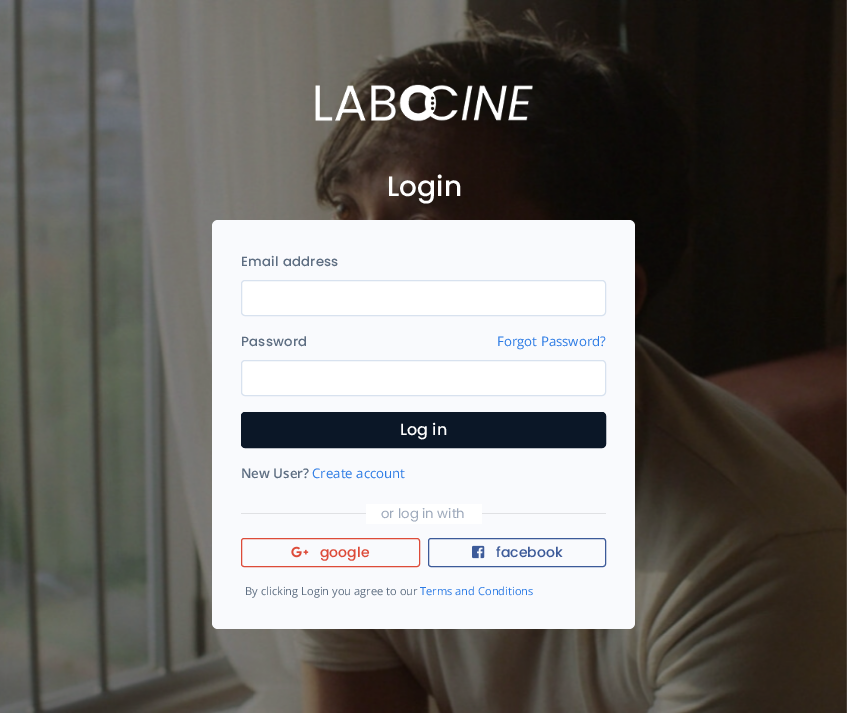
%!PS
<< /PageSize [847 713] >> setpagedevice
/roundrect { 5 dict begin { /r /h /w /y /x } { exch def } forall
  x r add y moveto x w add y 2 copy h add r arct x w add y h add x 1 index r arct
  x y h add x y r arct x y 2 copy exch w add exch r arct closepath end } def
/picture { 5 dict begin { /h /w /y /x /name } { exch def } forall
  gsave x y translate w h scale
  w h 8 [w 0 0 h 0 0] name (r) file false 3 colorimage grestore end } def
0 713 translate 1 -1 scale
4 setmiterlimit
1 setgray
0 0 847 713 rectfill
(img1.rgb) 0 0 847 713 picture
(img2.rgb) 315 84 218 38 picture
/Poppins-Medium [28 0 0 -28 0 0] selectfont
387 196 moveto (Login) show
0.976 0.98 0.992 setrgbcolor
212 220 423 409 6 roundrect fill
/Poppins-Medium [13.25 0 0 -13.25 0 0] selectfont
0.369 0.431 0.51 setrgbcolor
241 266 moveto 0.25 0 (Email address) ashow
1 setgray
241.5 280.5 364 35 3.5 roundrect gsave fill grestore
0.847 0.886 0.937 setrgbcolor
stroke
0.369 0.431 0.51 setrgbcolor
241 346 moveto 0.25 0 (Password) ashow
/OpenSans-Regular [13.25 0 0 -13.25 0 0] selectfont
0.173 0.482 0.898 setrgbcolor
497 346 moveto (Forgot Password?) show
1 setgray
241.5 360.5 364 35 3.5 roundrect gsave fill grestore
0.847 0.886 0.937 setrgbcolor
stroke
0.043 0.09 0.153 setrgbcolor
241.5 412.5 364 35 3.5 roundrect gsave fill grestore
stroke
/Poppins-Medium [16 0 0 -16 0 0] selectfont
1 setgray
400 435 moveto (Log in) show
/OpenSans-SemiBold [13.25 0 0 -13.25 0 0] selectfont
0.369 0.431 0.51 setrgbcolor
241 478 moveto (New User?) show
/OpenSans-Regular [13.25 0 0 -13.25 0 0] selectfont
0.173 0.482 0.898 setrgbcolor
312 478 moveto (Create account) show
0.878 0.882 0.894 setrgbcolor
241 513 365 1 rectfill
1 setgray
366 504 116 20 rectfill
/Poppins-Regular [13.25 0 0 -13.25 0 0] selectfont
0.616 0.663 0.733 setrgbcolor
381 518 moveto (or log in with) show
0.867 0.294 0.224 setrgbcolor
241.5 538.5 178 28 2.5 roundrect stroke
(img3.rgb) 291 546 18 12 picture
/Poppins-Medium [14 0 0 -14 0 0] selectfont
320 557 moveto (google) show
0.235 0.353 0.6 setrgbcolor
428.5 538.5 177 28 2.5 roundrect stroke
(img4.rgb) 472 545 13 14 picture
496 557 moveto (facebook) show
/OpenSans-Regular [11.1 0 0 -11.1 0 0] selectfont
0.369 0.431 0.51 setrgbcolor
245 595 moveto (By clicking Login you agree to our) show
0.173 0.482 0.898 setrgbcolor
420 595 moveto (Terms and Conditions) show
showpage
